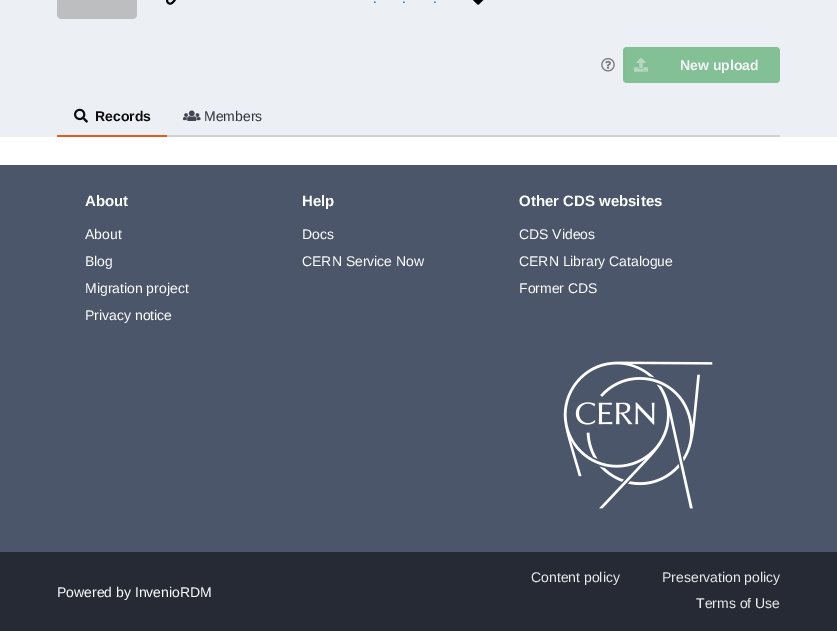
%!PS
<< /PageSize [837 631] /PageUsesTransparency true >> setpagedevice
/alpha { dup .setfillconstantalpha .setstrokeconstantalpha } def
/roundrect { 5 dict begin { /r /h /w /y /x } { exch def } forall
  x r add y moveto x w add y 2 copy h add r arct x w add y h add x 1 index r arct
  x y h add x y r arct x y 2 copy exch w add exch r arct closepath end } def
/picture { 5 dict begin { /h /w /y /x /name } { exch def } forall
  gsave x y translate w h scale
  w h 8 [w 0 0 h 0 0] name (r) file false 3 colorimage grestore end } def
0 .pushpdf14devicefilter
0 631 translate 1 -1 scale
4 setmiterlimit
1 setgray
0 0 837 631 rectfill
0.925 0.937 0.957 setrgbcolor
0 0 837 137 rectfill
(img1.rgb) 57 0 80 19 picture
(img2.rgb) 166 0 10 5 picture
/LiberationSans-Regular [14 0 0 -14 0 0] selectfont
0 0.357 0.62 setrgbcolor
373 3 moveto (.) show
402 3 moveto (.) show
433 3 moveto (.) show
(img3.rgb) 473 0 11 5 picture
(img4.rgb) 601 58 14 14 picture
0.518 0.753 0.588 setrgbcolor
623 47 157 36 4 roundrect fill
0.05 alpha
0.549 0.557 0.569 setrgbcolor
623 47 3 36 rectfill
1 alpha
(img5.rgb) 634 58 14 14 picture
/LiberationSans-Bold [14 0 0 -14 0 0] selectfont
0.961 0.965 0.976 setrgbcolor
680 70 moveto (New upload) show
0.808 0.82 0.835 setrgbcolor
167 135 613 2 rectfill
0.882 0.369 0.137 setrgbcolor
57 135 110 2 rectfill
(img6.rgb) 74 108 14 15 picture
0.047 setgray
95 121 moveto (Records) show
(img7.rgb) 183 110 18 11 picture
/LiberationSans-Regular [14 0 0 -14 0 0] selectfont
0.18 0.204 0.251 setrgbcolor
204 121 moveto (Members) show
0.298 0.337 0.416 setrgbcolor
0 165 837 387 rectfill
/LiberationSans-Bold [15 0 0 -15 0 0] selectfont
1 setgray
85 206 moveto (About) show
/LiberationSans-Regular [14 0 0 -14 0 0] selectfont
85 239 moveto (About) show
85 266 moveto (Blog) show
85 293 moveto (Migration project) show
85 320 moveto (Privacy notice) show
/LiberationSans-Bold [15 0 0 -15 0 0] selectfont
302 206 moveto (Help) show
/LiberationSans-Regular [14 0 0 -14 0 0] selectfont
302 239 moveto (Docs) show
302 266 moveto (CERN Service Now) show
/LiberationSans-Bold [15 0 0 -15 0 0] selectfont
519 206 moveto (Other CDS websites) show
/LiberationSans-Regular [14 0 0 -14 0 0] selectfont
519 239 moveto (CDS Videos) show
519 266 moveto (CERN Library Catalogue) show
519 293 moveto (Former CDS) show
(img8.rgb) 563 361 150 148 picture
0.145 0.165 0.204 setrgbcolor
0 552 837 79 rectfill
1 setgray
57 597 moveto (Powered by InvenioRDM) show
0.914 0.918 0.922 setrgbcolor
531 582 moveto (Content policy) show
662 582 moveto (Preservation policy) show
696 608 moveto (Terms of Use) show
.poppdf14devicefilter showpage
